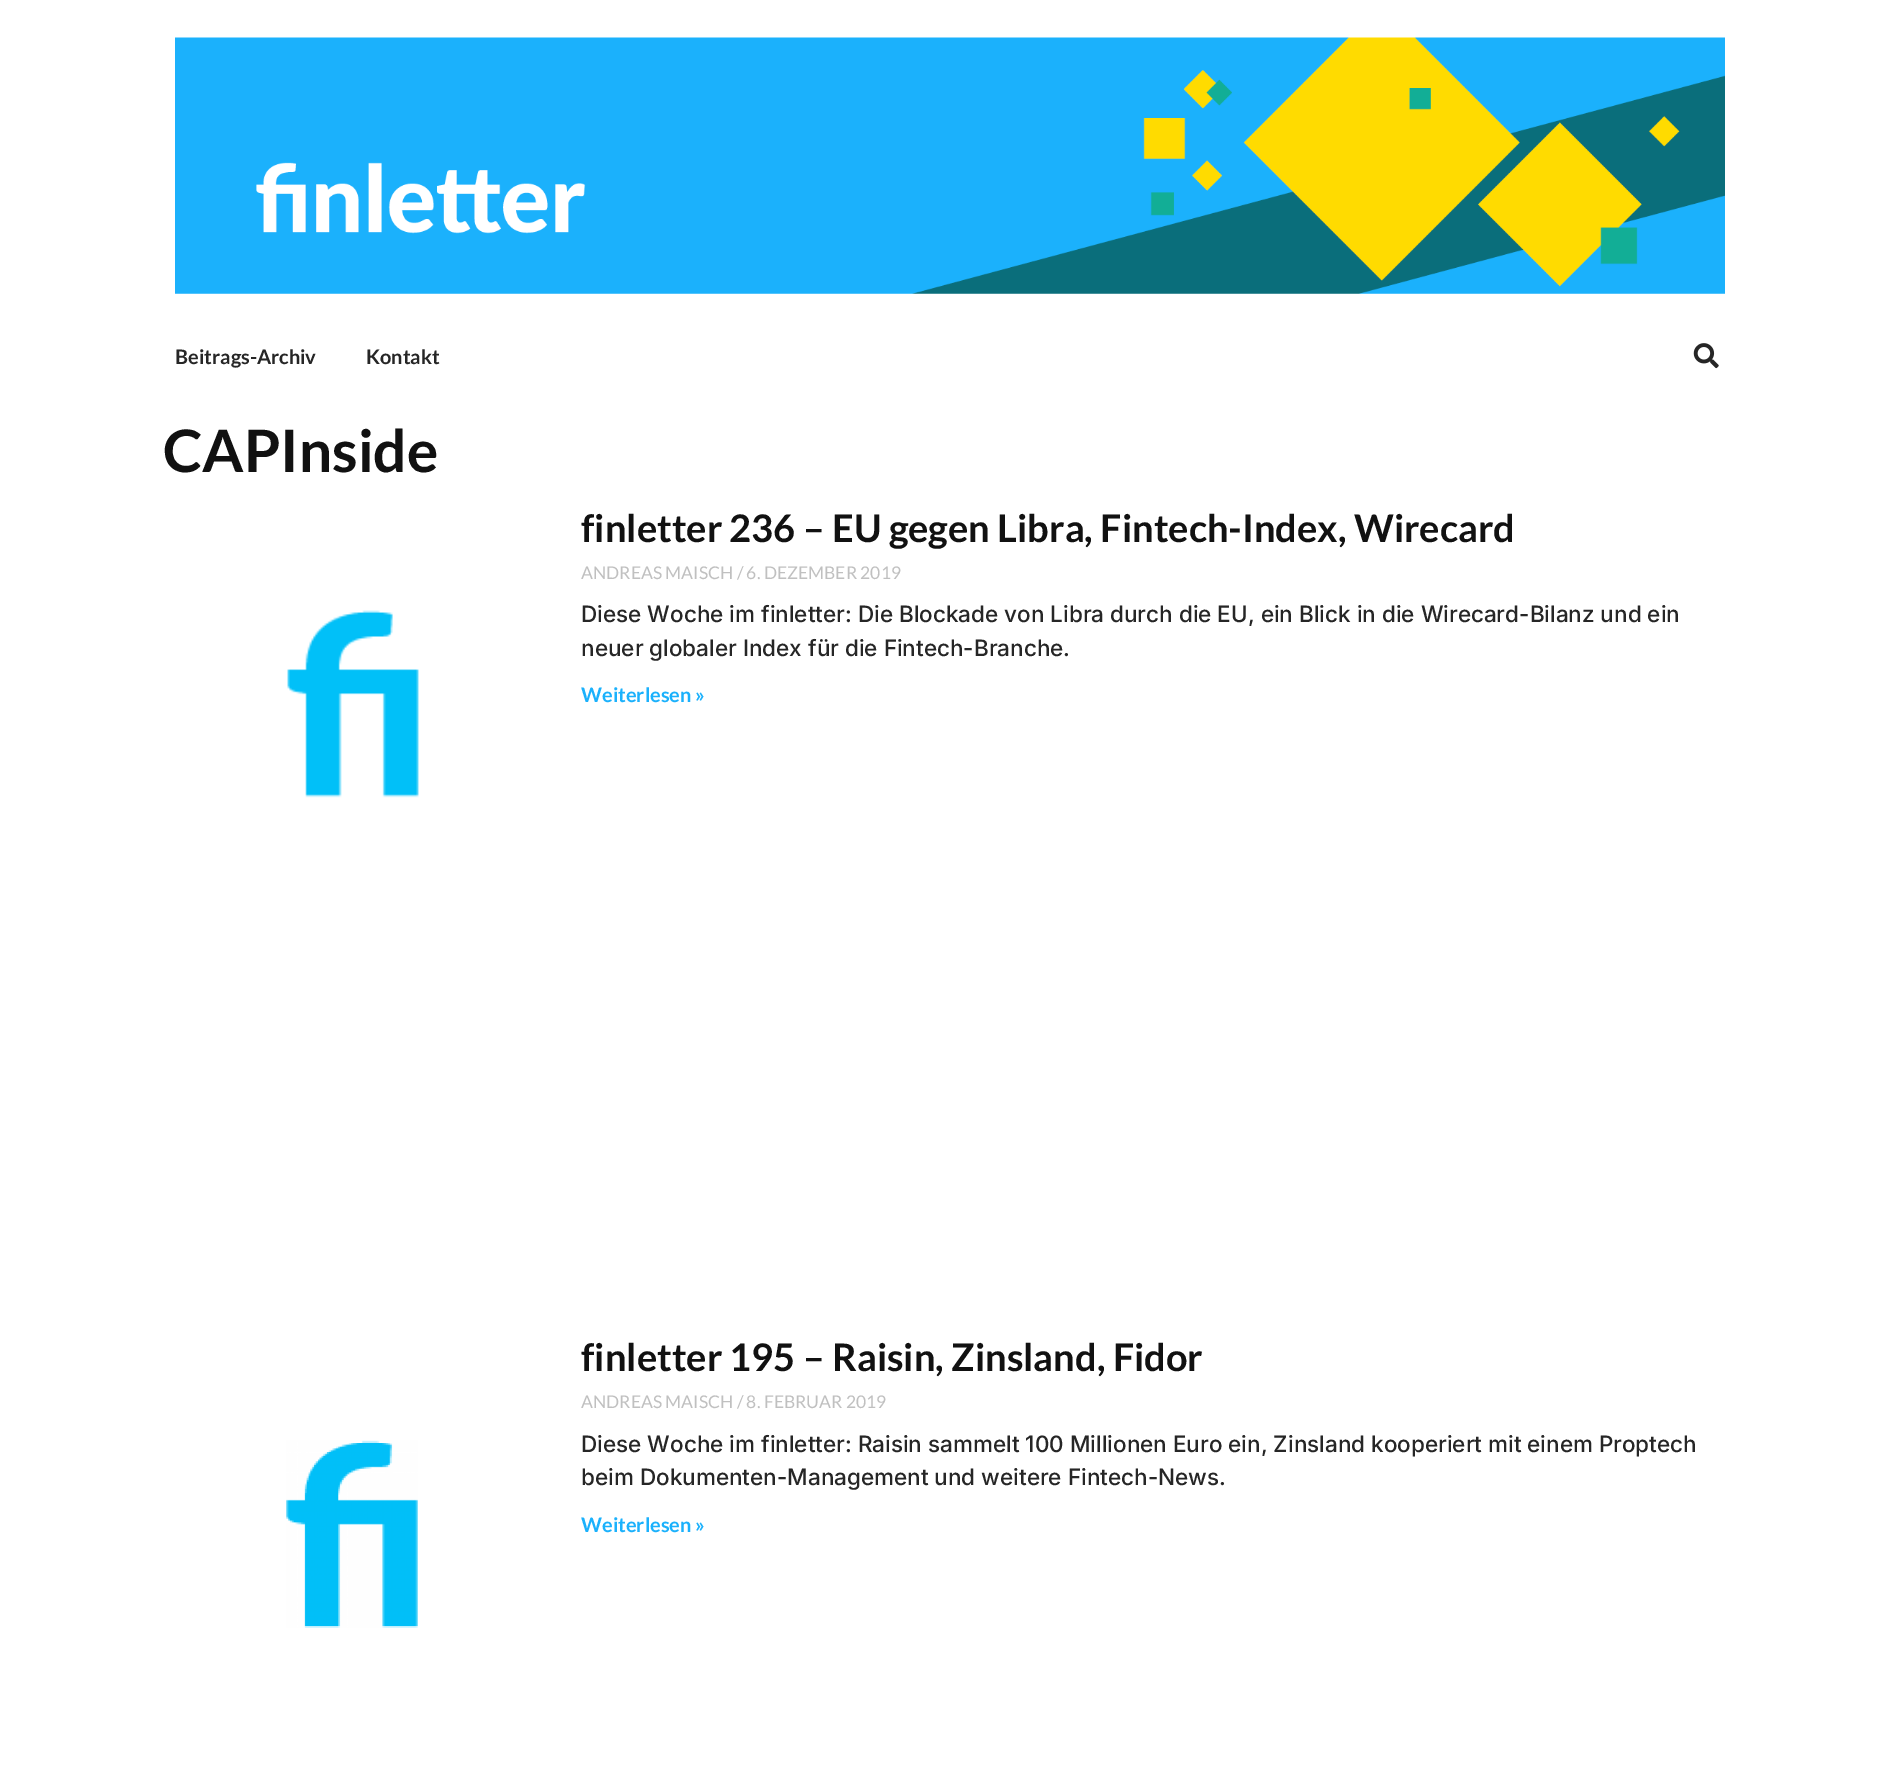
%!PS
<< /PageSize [1900 1787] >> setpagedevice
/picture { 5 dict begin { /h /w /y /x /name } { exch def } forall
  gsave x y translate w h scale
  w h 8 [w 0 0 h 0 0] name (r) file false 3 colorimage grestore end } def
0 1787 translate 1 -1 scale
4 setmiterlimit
1 setgray
0 0 1900 1787 rectfill
(img1.rgb) 175 37 1550 257 picture
/Lato-Bold [20 0 0 -20 0 0] selectfont
0.149 setgray
175 364 moveto (Beitrags-Archiv) show
366 364 moveto (Kontakt) show
(img2.rgb) 1693 343 26 26 picture
/Lato-Bold [58.5 0 0 -58.5 0 0] selectfont
0.067 setgray
163 472 moveto (CAPInside) show
(img3.rgb) 287 610 132 188 picture
/Lato-Bold [38 0 0 -38 0 0] selectfont
581 542 moveto (finletter 236 – EU gegen Libra, Fintech-Index, Wirecard) show
/Lato-Regular [17.5 0 0 -17.5 0 0] selectfont
0.753 setgray
581 579 moveto (ANDREAS MAISCH / 6. DEZEMBER 2019) show
/Inter-Medium [22.5 0 0 -22.5 0 0] selectfont
0.149 setgray
581 622 moveto (Diese Woche im finletter: Die Blockade von Libra durch die EU, ein Blick in die Wirecard-Bilanz und ein) show
581 656 moveto (neuer globaler Index für die Fintech-Branche.) show
/Lato-Bold [20 0 0 -20 0 0] selectfont
0.106 0.694 0.988 setrgbcolor
581 702 moveto (Weiterlesen ») show
(img4.rgb) 286 1440 132 188 picture
/Lato-Bold [38 0 0 -38 0 0] selectfont
0.067 setgray
581 1371 moveto (finletter 195 – Raisin, Zinsland, Fidor) show
/Lato-Regular [17.5 0 0 -17.5 0 0] selectfont
0.753 setgray
581 1408 moveto (ANDREAS MAISCH / 8. FEBRUAR 2019) show
/Inter-Medium [22.5 0 0 -22.5 0 0] selectfont
0.149 setgray
581 1452 moveto (Diese Woche im finletter: Raisin sammelt 100 Millionen Euro ein, Zinsland kooperiert mit einem Proptech) show
581 1485 moveto (beim Dokumenten-Management und weitere Fintech-News.) show
/Lato-Bold [20 0 0 -20 0 0] selectfont
0.106 0.694 0.988 setrgbcolor
581 1532 moveto (Weiterlesen ») show
showpage
